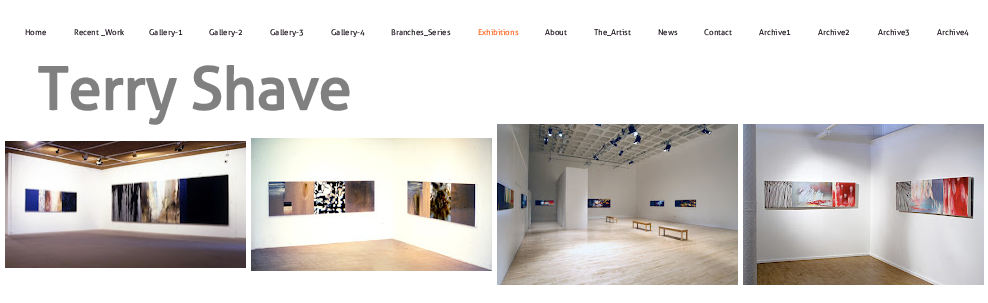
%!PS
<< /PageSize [988 303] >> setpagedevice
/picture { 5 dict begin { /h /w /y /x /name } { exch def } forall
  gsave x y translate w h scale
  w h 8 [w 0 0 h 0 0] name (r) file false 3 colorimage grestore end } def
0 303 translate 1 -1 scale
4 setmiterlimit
1 setgray
0 0 988 303 rectfill
/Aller-Regular [8 0 0 -8 0 0] selectfont
0.039 0 0.039 setrgbcolor
25 35 moveto (Home) show
74 35 moveto (Recent _Work) show
149 35 moveto (Gallery-1) show
209 35 moveto (Gallery-2) show
270 35 moveto (Gallery-3) show
331 35 moveto (Gallery-4) show
391 35 moveto (Branches_Series) show
0.988 0.341 0.039 setrgbcolor
478 35 moveto (Exhibitions) show
0.039 0 0.039 setrgbcolor
545 35 moveto (About) show
594 35 moveto (The_Artist) show
658 35 moveto (News) show
704 35 moveto (Contact) show
759 35 moveto (Archive1) show
818 35 moveto (Archive2) show
878 35 moveto (Archive3) show
937 35 moveto (Archive4) show
/Aller-Bold [59 0 0 -59 0 0] selectfont
0.502 setgray
37 110 moveto (Terry Shave) show
(img1.rgb) 5 141 241 127 picture
(img2.rgb) 251 138 241 133 picture
(img3.rgb) 497 124 241 161 picture
(img4.rgb) 743 124 241 161 picture
showpage
